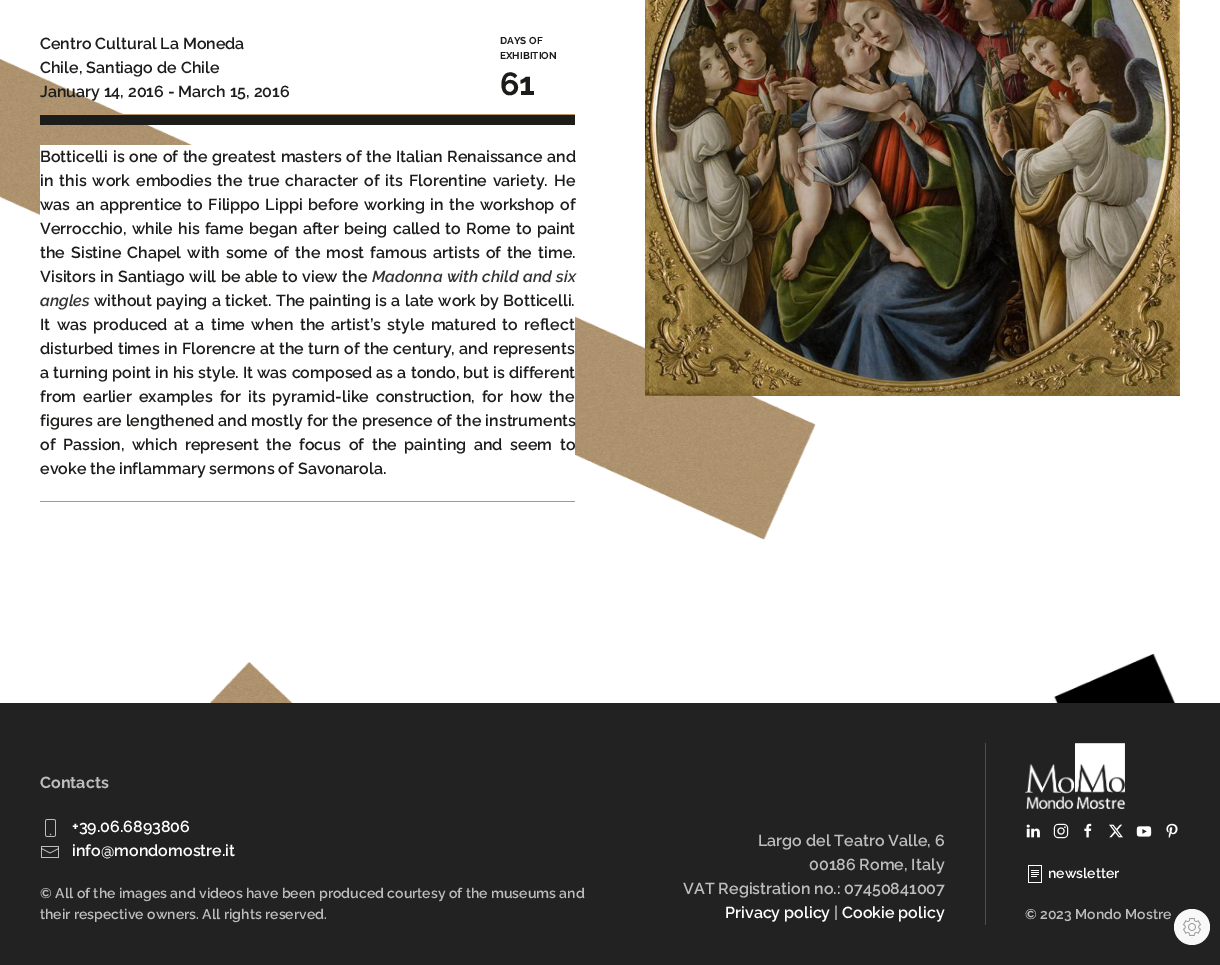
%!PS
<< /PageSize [1220 965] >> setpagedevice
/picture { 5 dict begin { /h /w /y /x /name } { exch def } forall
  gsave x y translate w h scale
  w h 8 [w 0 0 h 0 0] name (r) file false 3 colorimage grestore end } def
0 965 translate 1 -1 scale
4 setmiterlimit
1 setgray
0 0 1220 965 rectfill
(img1.rgb) 0 59 1220 644 picture
/Raleway-SemiBold [16 0 0 -16 0 0] selectfont
0.11 0.114 0.102 setrgbcolor
40 49 moveto (Centro Cultural La Moneda) show
40 73 moveto (Chile, Santiago de Chile) show
40 97 moveto (January 14, 2016 - March 15, 2016) show
/Raleway-Bold [10 0 0 -10 0 0] selectfont
500 44 moveto (DAYS OF) show
500 59 moveto (EXHIBITION) show
/Raleway-Bold [32 0 0 -32 0 0] selectfont
500 95 moveto (61) show
0.725 0.58 0.4 setrgbcolor
40 114 535 1 rectfill
0.11 0.114 0.102 setrgbcolor
40 115 535 10 rectfill
1 setgray
40 145 535 311 rectfill
/Raleway-SemiBold [16 0 0 -16 0 0] selectfont
0.11 0.114 0.102 setrgbcolor
40 162 moveto 0.75 0 32 (Botticelli is one of the greatest masters of the Italian Renaissance and) widthshow
40 186 moveto 2 0 32 (in this work embodies the true character of its Florentine variety. He) widthshow
40 210 moveto 1.5 0 32 (was an apprentice to Filippo Lippi before working in the workshop of) widthshow
40 234 moveto 1.4 0 32 (Verrocchio, while his fame began after being called to Rome to paint) widthshow
40 258 moveto 2.1 0 32 (the Sistine Chapel with some of the most famous artists of the time.) widthshow
40 282 moveto 0.5 0 32 (Visitors in Santiago will be able to view the) widthshow
/Raleway-SemiBoldItalic [16 0 0 -16 0 0] selectfont
0.2 setgray
372 282 moveto 0.5 0 32 (Madonna with child and six) widthshow
40 306 moveto (angles) show
/Raleway-SemiBold [16 0 0 -16 0 0] selectfont
0.11 0.114 0.102 setrgbcolor
94 306 moveto 0.4 0 32 (without paying a ticket. The painting is a late work by Botticelli.) widthshow
40 330 moveto 2.5 0 32 (It was produced at a time when the artist’s style matured to reflect) widthshow
40 354 moveto 0.5 0 32 (disturbed times in Florencre at the turn of the century, and represents) widthshow
40 378 moveto 0.25 0 32 (a turning point in his style. It was composed as a tondo, but is different) widthshow
40 402 moveto 3 0 32 (from earlier examples for its pyramid-like construction, for how the) widthshow
40 426 moveto 0.25 0 32 (figures are lengthened and mostly for the presence of the instruments) widthshow
40 450 moveto 3.75 0 32 (of Passion, which represent the focus of the painting and seem to) widthshow
40 474 moveto (evoke the inflammary sermons of Savonarola.) show
0.725 0.58 0.4 setrgbcolor
40 501 535 1 rectfill
(img2.rgb) 645 0 535 396 picture
0.133 setgray
0 703 1220 262 rectfill
/Raleway-Bold [16 0 0 -16 0 0] selectfont
0.741 setgray
40 788 moveto (Contacts) show
(img3.rgb) 45 819 11 18 picture
/Raleway-SemiBold [16 0 0 -16 0 0] selectfont
1 setgray
72 832 moveto (+39.06.6893806) show
(img4.rgb) 41 846 18 12 picture
72 856 moveto (info@mondomostre.it) show
/Raleway-SemiBold [14 0 0 -14 0 0] selectfont
0.741 setgray
40 898 moveto (© All of the images and videos have been produced courtesy of the museums and) show
40 919 moveto (their respective owners. All rights reserved.) show
/Raleway-SemiBold [16 0 0 -16 0 0] selectfont
758 846 moveto (Largo del Teatro Valle, 6) show
809 870 moveto (00186 Rome, Italy) show
683 894 moveto (VAT Registration no.: 07450841007) show
1 setgray
725 918 moveto (Privacy policy) show
0.741 setgray
834 918 moveto (|) show
1 setgray
842 918 moveto (Cookie policy) show
0.306 setgray
985 743 1 182 rectfill
(img5.rgb) 1025 743 100 66 picture
(img6.rgb) 1026 824 14 14 picture
(img7.rgb) 1053 823 16 16 picture
(img8.rgb) 1084 823 8 15 picture
(img9.rgb) 1109 824 14 14 picture
(img10.rgb) 1136 826 16 11 picture
(img11.rgb) 1166 823 12 15 picture
(img12.rgb) 1028 865 14 18 picture
/Raleway-SemiBold [14 0 0 -14 0 0] selectfont
1 setgray
1048 878 moveto (newsletter) show
0.741 setgray
1025 919 moveto (© 2023 Mondo Mostre) show
0.973 setgray
newpath 1192 927 18 0 360 arc closepath fill
(img13.rgb) 1182 918 20 18 picture
showpage
